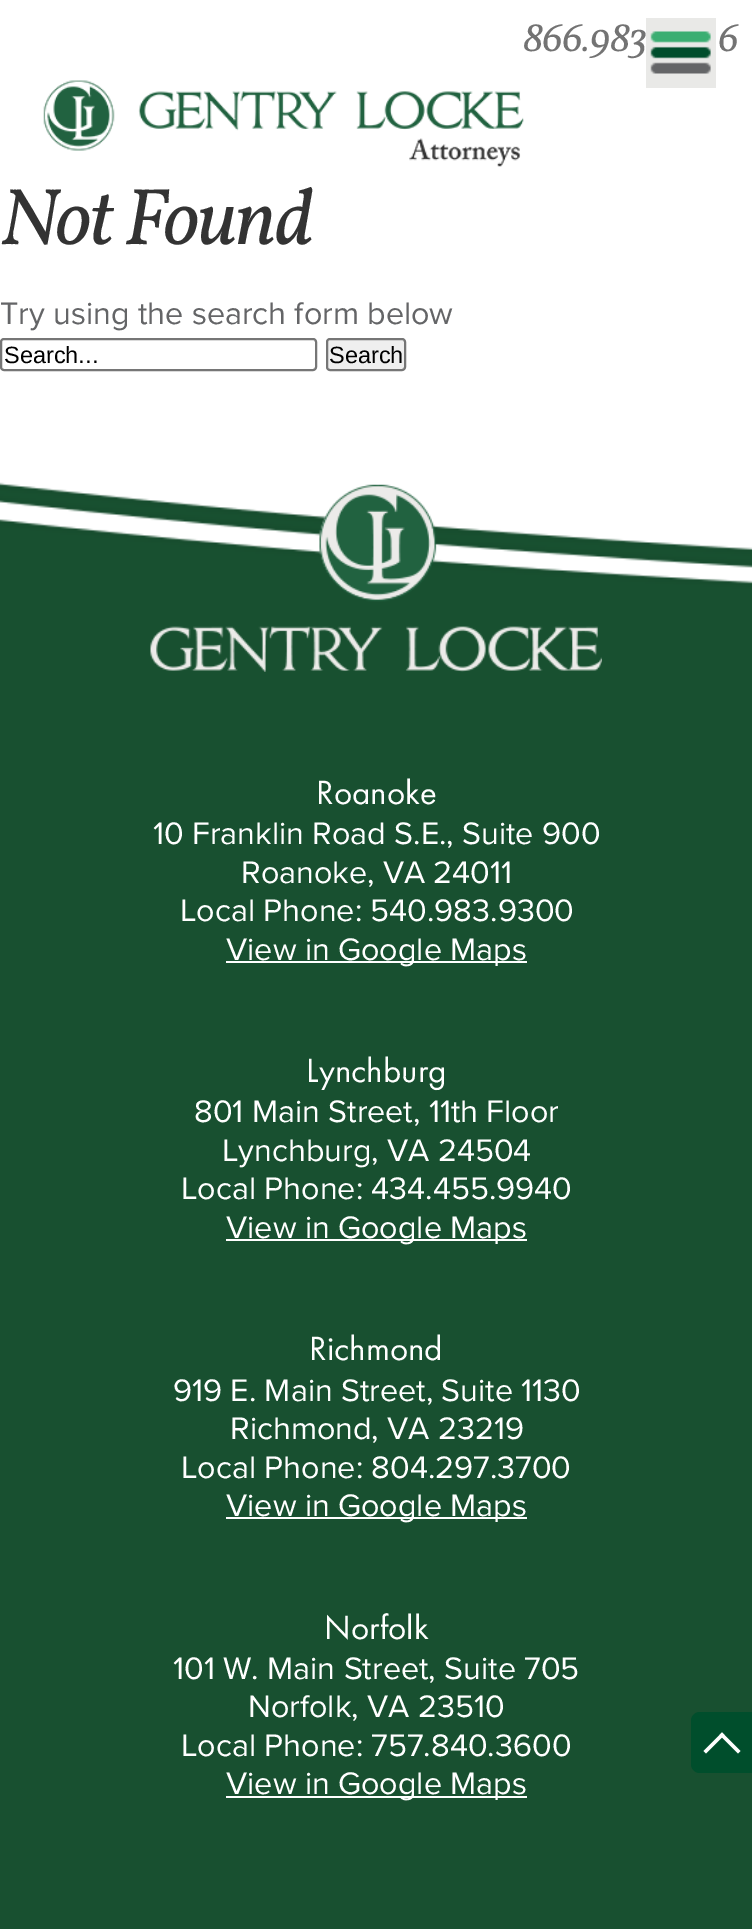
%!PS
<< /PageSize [752 1929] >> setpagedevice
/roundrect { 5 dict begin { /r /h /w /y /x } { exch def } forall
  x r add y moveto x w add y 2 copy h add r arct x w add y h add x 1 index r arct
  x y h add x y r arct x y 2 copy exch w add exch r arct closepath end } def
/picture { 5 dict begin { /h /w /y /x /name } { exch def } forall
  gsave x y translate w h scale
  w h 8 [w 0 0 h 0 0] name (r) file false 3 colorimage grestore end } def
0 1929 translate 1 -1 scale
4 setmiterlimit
1 setgray
0 0 752 1929 rectfill
0.914 0.914 0.906 setrgbcolor
646 18 70 70 rectfill
(img1.rgb) 650 31 61 43 picture
/Vollkorn-Italic [42 0 0 -42 0 0] selectfont
0.451 setgray
523 51 moveto (866.983) show
718 51 moveto (6) show
(img2.rgb) 43 80 481 87 picture
/Vollkorn-Italic [80.5 0 0 -80.5 0 0] selectfont
0.2 setgray
0 244 moveto -2.5 0 (Not Found) ashow
/ProximaNova-Regular [32.25 0 0 -32.25 0 0] selectfont
0.392 0.396 0.404 setrgbcolor
0 324 moveto (Try using the search form below) show
0.463 setgray
2 setlinewidth
1 339 315 31 3 roundrect stroke
/LiberationSans-Regular [23.5 0 0 -23.5 0 0] selectfont
0 setgray
4 363 moveto (Search...) show
0.937 setgray
327 339 78 31 3 roundrect gsave fill grestore
0.463 setgray
stroke
0 setgray
329 363 moveto (Search) show
0.094 0.314 0.188 setrgbcolor
0 616 752 1313 rectfill
(img3.rgb) 0 482 752 134 picture
(img4.rgb) 150 484 452 188 picture
/FuturaPT-Regular [35 0 0 -35 0 0] selectfont
1 setgray
316 804 moveto (Roanoke) show
/ProximaNova-Regular [32.25 0 0 -32.25 0 0] selectfont
153 844 moveto (10 Franklin Road S.E., Suite 900) show
241 883 moveto (Roanoke, VA 24011) show
180 921 moveto (Local Phone: 540.983.9300) show
226 961 301 2 rectfill
226 960 moveto (View in Google Maps) show
/FuturaPT-Regular [35 0 0 -35 0 0] selectfont
306 1082 moveto (Lynchburg) show
/ProximaNova-Regular [32.25 0 0 -32.25 0 0] selectfont
194 1122 moveto (801 Main Street, 11th Floor) show
222 1161 moveto (Lynchburg, VA 24504) show
181 1199 moveto (Local Phone: 434.455.9940) show
226 1239 301 2 rectfill
226 1238 moveto (View in Google Maps) show
/FuturaPT-Regular [35 0 0 -35 0 0] selectfont
309 1360 moveto (Richmond) show
/ProximaNova-Regular [32.25 0 0 -32.25 0 0] selectfont
173 1401 moveto (919 E. Main Street, Suite 1130) show
230 1439 moveto (Richmond, VA 23219) show
181 1478 moveto (Local Phone: 804.297.3700) show
226 1517 301 2 rectfill
226 1516 moveto (View in Google Maps) show
/FuturaPT-Regular [35 0 0 -35 0 0] selectfont
324 1639 moveto (Norfolk) show
/ProximaNova-Regular [32.25 0 0 -32.25 0 0] selectfont
173 1679 moveto (101 W. Main Street, Suite 705) show
248 1717 moveto (Norfolk, VA 23510) show
181 1756 moveto (Local Phone: 757.840.3600) show
226 1796 301 2 rectfill
226 1794 moveto (View in Google Maps) show
0 0.306 0.173 setrgbcolor
newpath 700 1712 moveto 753 1712 lineto 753 1773 lineto 700 1773 lineto 695 1773 691 1769 691 1764 curveto 691 1721 lineto 691 1716 695 1712 700 1712 curveto closepath fill
1 setgray
newpath 706 1753.5 moveto 703.5 1751 lineto 722 1732.5 lineto 724.5 1735 lineto closepath fill
newpath 738 1753.5 moveto 719.5 1735 lineto 722 1732.5 lineto 740.5 1751 lineto closepath fill
showpage
